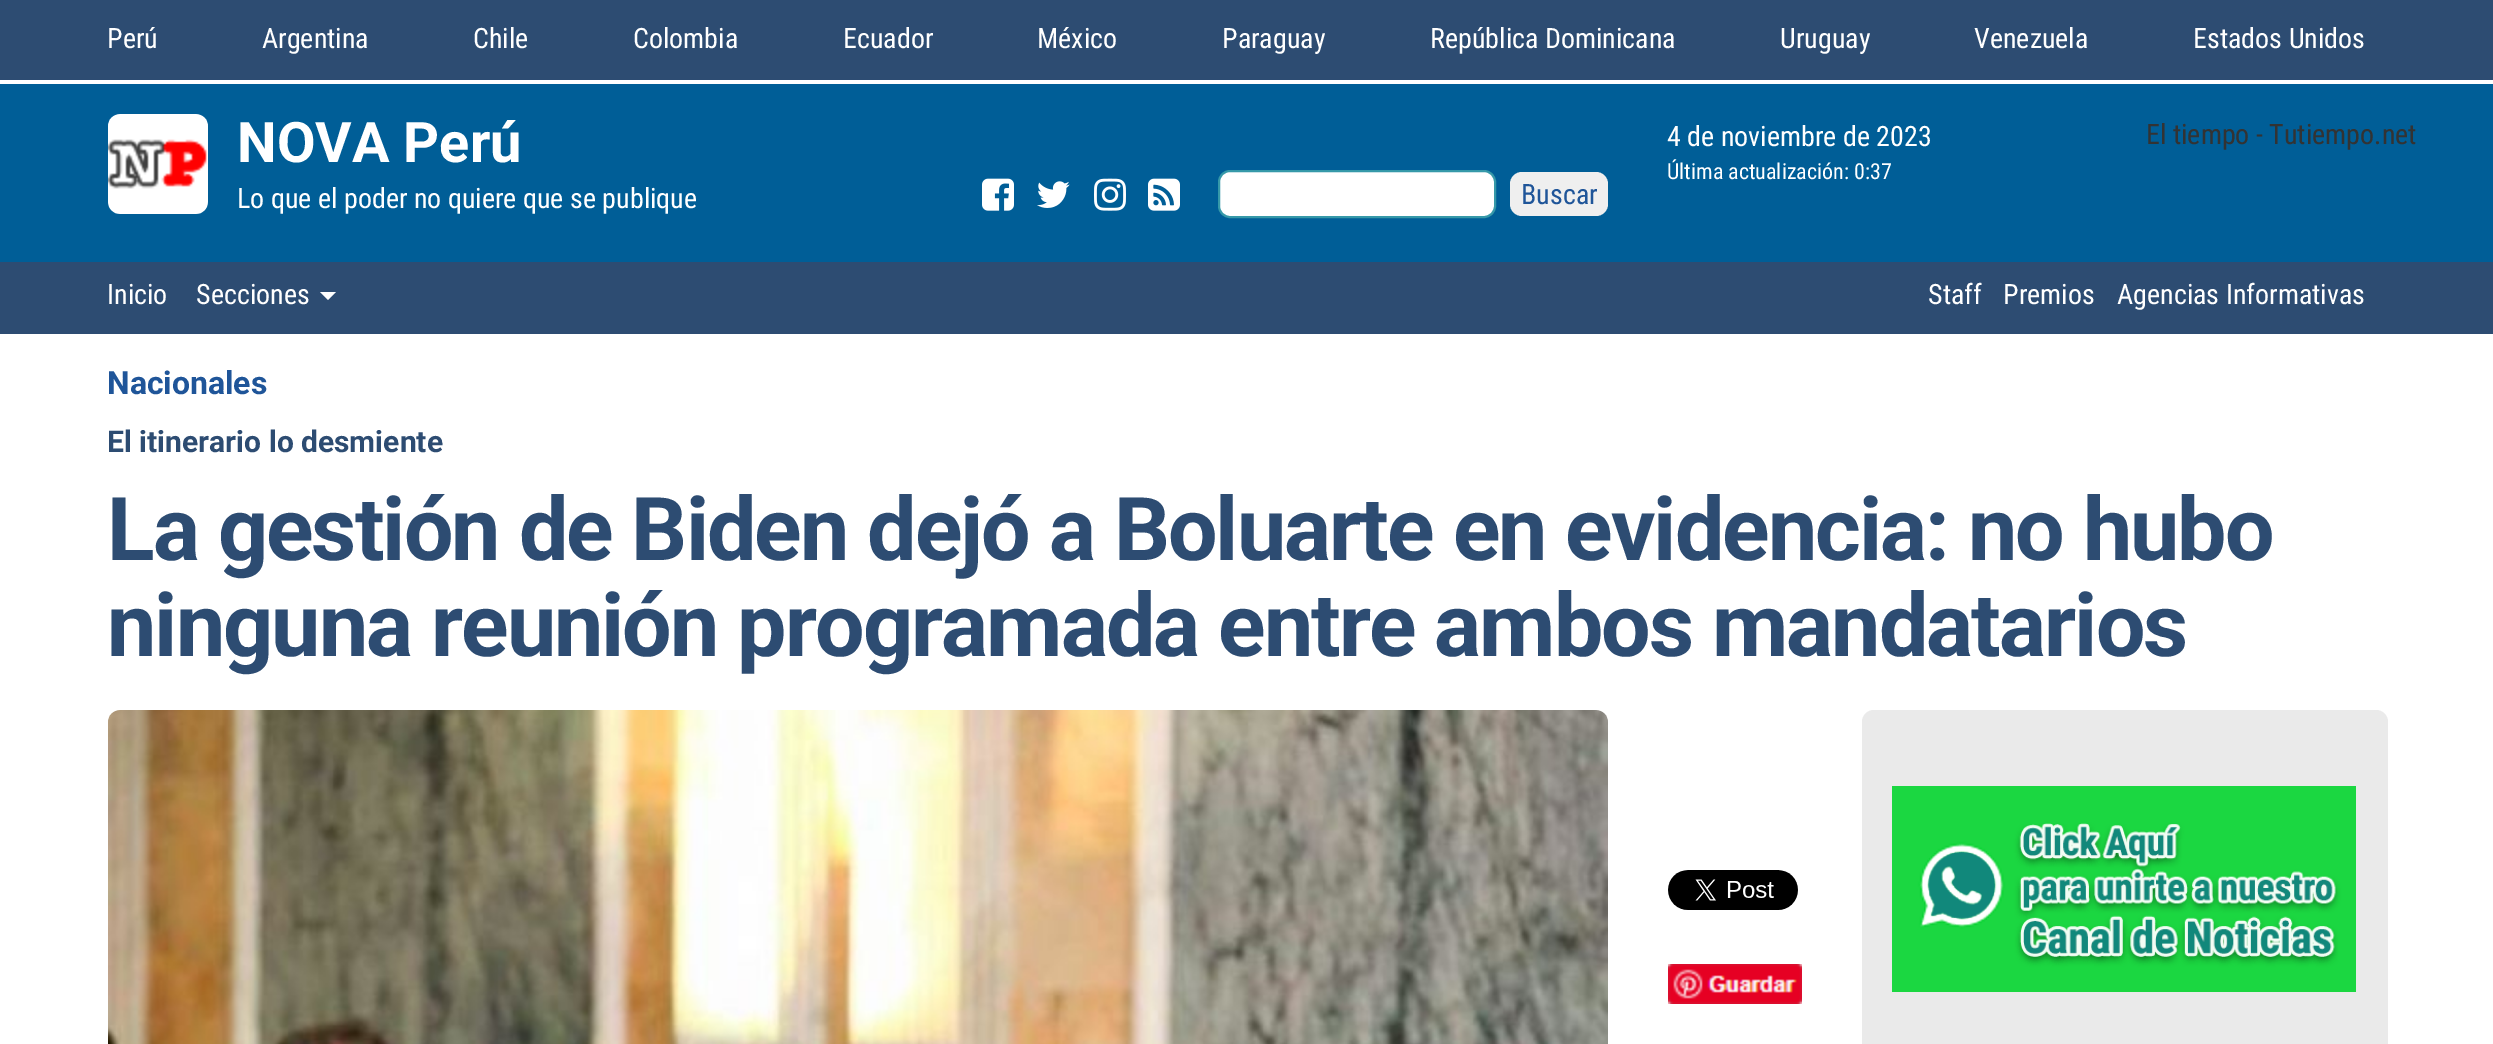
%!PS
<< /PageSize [2493 1044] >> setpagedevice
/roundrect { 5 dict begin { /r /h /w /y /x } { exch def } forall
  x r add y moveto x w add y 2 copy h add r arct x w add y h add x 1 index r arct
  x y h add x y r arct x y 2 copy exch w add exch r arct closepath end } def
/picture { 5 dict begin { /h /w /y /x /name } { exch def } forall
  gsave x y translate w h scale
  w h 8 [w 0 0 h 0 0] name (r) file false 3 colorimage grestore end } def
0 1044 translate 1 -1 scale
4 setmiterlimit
1 setgray
0 0 2493 1044 rectfill
0.176 0.298 0.447 setrgbcolor
0 0 2493 80 rectfill
/RobotoCondensed-Regular [28 0 0 -28 0 0] selectfont
1 setgray
107 48 moveto (Perú) show
262 48 moveto (Argentina) show
473 48 moveto (Chile) show
633 48 moveto (Colombia) show
843 48 moveto (Ecuador) show
1037 48 moveto (México) show
1222 48 moveto (Paraguay) show
1430 48 moveto (República Dominicana) show
1780 48 moveto (Uruguay) show
1974 48 moveto (Venezuela) show
2193 48 moveto (Estados Unidos) show
0 0.369 0.592 setrgbcolor
0 84 2493 178 rectfill
(img1.rgb) 108 114 100 100 picture
/Roboto-Bold [56 0 0 -56 0 0] selectfont
1 setgray
237 162 moveto (NOVA Perú) show
/RobotoCondensed-Regular [28 0 0 -28 0 0] selectfont
237 208 moveto (Lo que el poder no quiere que se publique) show
1667 146 moveto (4 de noviembre de 2023) show
/RobotoCondensed-Regular [22 0 0 -22 0 0] selectfont
1667 179 moveto (Última actualización: 0:37) show
/RobotoCondensed-Regular [28 0 0 -28 0 0] selectfont
0.2 setgray
2146 144 moveto (El tiempo - Tutiempo.net) show
(img2.rgb) 982 178 32 33 picture
(img3.rgb) 1037 181 33 27 picture
(img4.rgb) 1094 178 32 33 picture
(img5.rgb) 1148 178 32 33 picture
1 setgray
1219 171 276 46 11 roundrect gsave fill grestore
0.212 0.6 0.663 setrgbcolor
2 setlinewidth
stroke
0.937 setgray
1510 172 98 44 12 roundrect fill
0.122 0.333 0.6 setrgbcolor
1521 204 moveto (Buscar) show
0.176 0.298 0.447 setrgbcolor
0 262 2493 72 rectfill
1 setgray
107 304 moveto (Inicio) show
196 304 moveto (Secciones) show
newpath 320 292 moveto 336 292 lineto 328 300 lineto closepath fill
1928 304 moveto (Staff) show
2003 304 moveto (Premios) show
2117 304 moveto (Agencias Informativas) show
/Roboto-Bold [32 0 0 -32 0 0] selectfont
0.122 0.333 0.6 setrgbcolor
107 394 moveto (Nacionales) show
/Roboto-Bold [30 0 0 -30 0 0] selectfont
0.176 0.298 0.447 setrgbcolor
107 452 moveto (El itinerario lo desmiente) show
/Roboto-Bold [88 0 0 -88 0 0] selectfont
107 560 moveto -2 0 (La gestión de Biden dejó a Boluarte en evidencia: no hubo) ashow
107 656 moveto -2 0 (ninguna reunión programada entre ambos mandatarios) ashow
(img6.rgb) 108 710 1500 334 picture
(img7.rgb) 1668 870 130 40 picture
(img8.rgb) 1668 964 134 40 picture
0.918 setgray
1862 710 526 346 12 roundrect fill
(img9.rgb) 1892 786 464 206 picture
showpage
